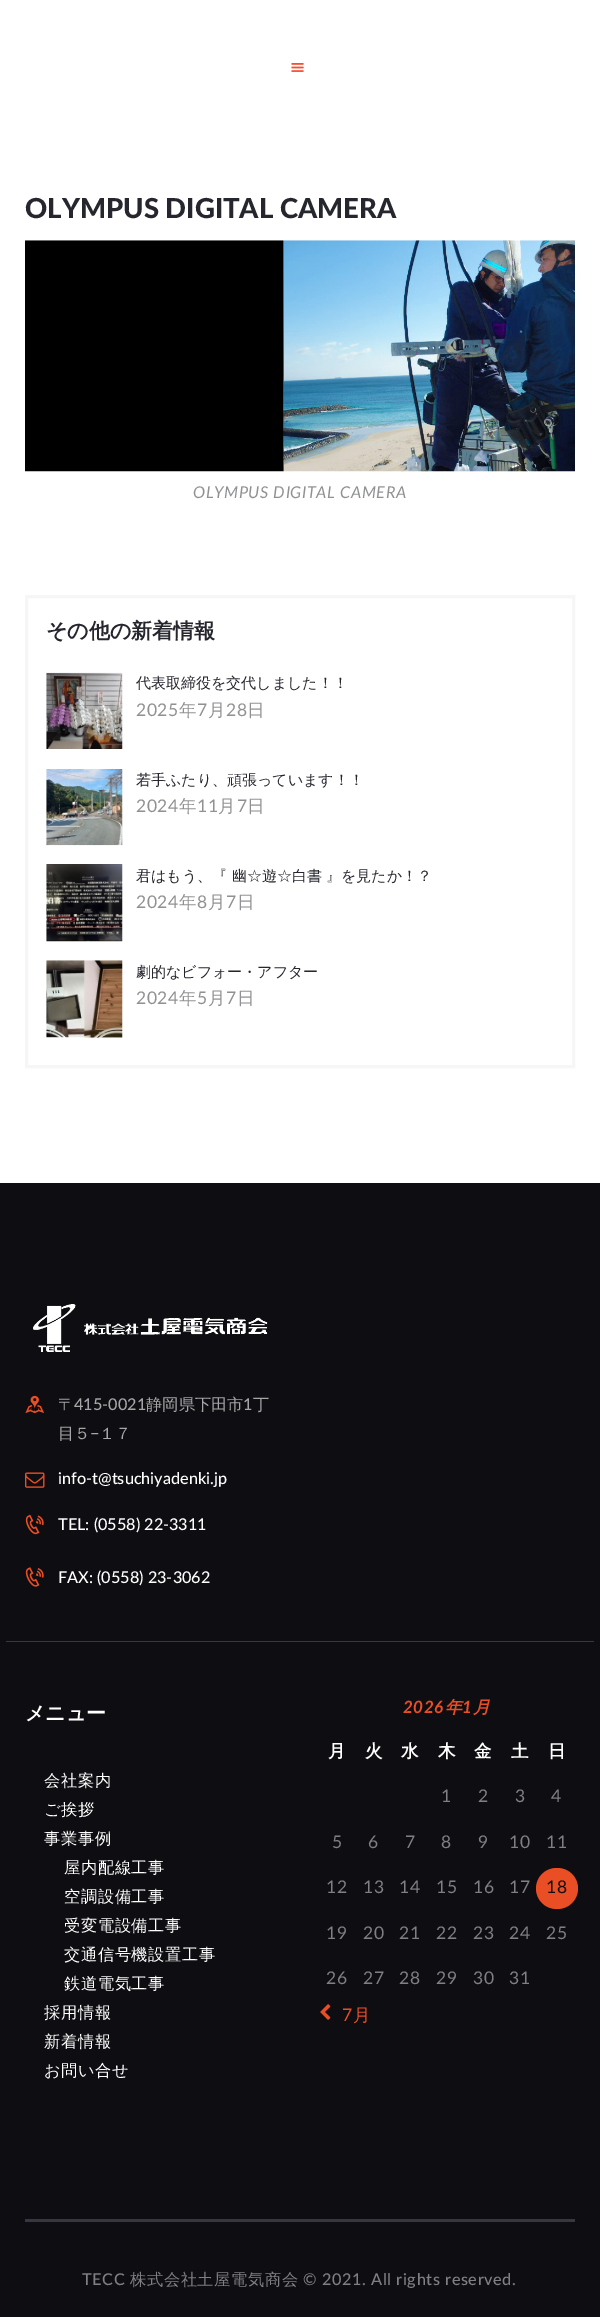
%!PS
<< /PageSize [600 2317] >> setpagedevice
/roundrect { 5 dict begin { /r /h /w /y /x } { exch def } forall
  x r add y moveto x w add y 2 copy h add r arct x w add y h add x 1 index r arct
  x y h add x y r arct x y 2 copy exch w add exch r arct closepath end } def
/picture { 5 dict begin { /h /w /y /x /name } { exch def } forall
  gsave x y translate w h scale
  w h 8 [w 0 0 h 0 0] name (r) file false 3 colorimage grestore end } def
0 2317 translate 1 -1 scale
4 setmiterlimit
1 setgray
0 0 600 2317 rectfill
(img1.rgb) 291 63 13 9 picture
/Lato-Black [27.5 0 0 -27.5 0 0] selectfont
0.145 0.149 0.18 setrgbcolor
25 218 moveto (OLYMPUS DIGITAL CAMERA) show
(img2.rgb) 25 240 550 232 picture
/Lato-Italic [16.25 0 0 -16.25 0 0] selectfont
0.565 0.569 0.576 setrgbcolor
193 498 moveto 0.6 0 (OLYMPUS DIGITAL CAMERA) ashow
0.965 setgray
3 setlinewidth
26.5 596.5 547 470 rectstroke
/WenQuanYiZenHei-Bold [21 0 0 -21 0 0] selectfont
0.145 0.149 0.18 setrgbcolor
46 638 moveto (その他の新着情報) show
(img3.rgb) 46 672 77 77 picture
/WenQuanYiZenHei-Medium [15 0 0 -15 0 0] selectfont
136 688 moveto (代表取締役を交代しました！！) show
/Lato-Regular [17.5 0 0 -17.5 0 0] selectfont
0.565 0.569 0.576 setrgbcolor
136 716 moveto 0.6 0 (2025) ashow
/WenQuanYiZenHei-Medium [17.5 0 0 -17.5 0 0] selectfont
179 716 moveto 0.6 0 (年) ashow
/Lato-Regular [17.5 0 0 -17.5 0 0] selectfont
197 716 moveto 0.6 0 (7) ashow
/WenQuanYiZenHei-Medium [17.5 0 0 -17.5 0 0] selectfont
208 716 moveto 0.6 0 (月) ashow
/Lato-Regular [17.5 0 0 -17.5 0 0] selectfont
226 716 moveto 0.6 0 (28) ashow
/WenQuanYiZenHei-Medium [17.5 0 0 -17.5 0 0] selectfont
247 716 moveto 0.6 0 (日) ashow
(img4.rgb) 46 769 77 77 picture
/WenQuanYiZenHei-Medium [15 0 0 -15 0 0] selectfont
0.145 0.149 0.18 setrgbcolor
136 785 moveto (若手ふたり、頑張っています！！) show
/Lato-Regular [17.5 0 0 -17.5 0 0] selectfont
0.565 0.569 0.576 setrgbcolor
136 812 moveto 0.6 0 (2024) ashow
/WenQuanYiZenHei-Medium [17.5 0 0 -17.5 0 0] selectfont
179 812 moveto 0.6 0 (年) ashow
/Lato-Regular [17.5 0 0 -17.5 0 0] selectfont
197 812 moveto 0.6 0 (11) ashow
/WenQuanYiZenHei-Medium [17.5 0 0 -17.5 0 0] selectfont
218 812 moveto 0.6 0 (月) ashow
/Lato-Regular [17.5 0 0 -17.5 0 0] selectfont
237 812 moveto 0.6 0 (7) ashow
/WenQuanYiZenHei-Medium [17.5 0 0 -17.5 0 0] selectfont
247 812 moveto 0.6 0 (日) ashow
(img5.rgb) 46 864 77 78 picture
/WenQuanYiZenHei-Medium [15 0 0 -15 0 0] selectfont
0.145 0.149 0.18 setrgbcolor
136 881 moveto (君はもう、『 幽☆遊☆白書 』を見たか！？) show
/Lato-Regular [17.5 0 0 -17.5 0 0] selectfont
0.565 0.569 0.576 setrgbcolor
136 908 moveto 0.6 0 (2024) ashow
/WenQuanYiZenHei-Medium [17.5 0 0 -17.5 0 0] selectfont
179 908 moveto 0.6 0 (年) ashow
/Lato-Regular [17.5 0 0 -17.5 0 0] selectfont
197 908 moveto 0.6 0 (8) ashow
/WenQuanYiZenHei-Medium [17.5 0 0 -17.5 0 0] selectfont
208 908 moveto 0.6 0 (月) ashow
/Lato-Regular [17.5 0 0 -17.5 0 0] selectfont
226 908 moveto 0.6 0 (7) ashow
/WenQuanYiZenHei-Medium [17.5 0 0 -17.5 0 0] selectfont
237 908 moveto 0.6 0 (日) ashow
(img6.rgb) 46 960 77 78 picture
/WenQuanYiZenHei-Medium [15 0 0 -15 0 0] selectfont
0.145 0.149 0.18 setrgbcolor
136 977 moveto (劇的なビフォー・アフター) show
/Lato-Regular [17.5 0 0 -17.5 0 0] selectfont
0.565 0.569 0.576 setrgbcolor
136 1004 moveto 0.6 0 (2024) ashow
/WenQuanYiZenHei-Medium [17.5 0 0 -17.5 0 0] selectfont
179 1004 moveto 0.6 0 (年) ashow
/Lato-Regular [17.5 0 0 -17.5 0 0] selectfont
197 1004 moveto 0.6 0 (5) ashow
/WenQuanYiZenHei-Medium [17.5 0 0 -17.5 0 0] selectfont
208 1004 moveto 0.6 0 (月) ashow
/Lato-Regular [17.5 0 0 -17.5 0 0] selectfont
226 1004 moveto 0.6 0 (7) ashow
/WenQuanYiZenHei-Medium [17.5 0 0 -17.5 0 0] selectfont
237 1004 moveto 0.6 0 (日) ashow
0.055 0.051 0.071 setrgbcolor
0 1183 600 1134 rectfill
(img7.rgb) 33 1304 235 48 picture
(img8.rgb) 25 1395 19 19 picture
/WenQuanYiZenHei-Medium [16.25 0 0 -16.25 0 0] selectfont
0.651 setgray
58 1410 moveto (〒) show
/Lato-Medium [16.25 0 0 -16.25 0 0] selectfont
74 1410 moveto (415-0021) show
/WenQuanYiZenHei-Medium [16.25 0 0 -16.25 0 0] selectfont
146 1410 moveto (静岡県下田市) show
/Lato-Medium [16.25 0 0 -16.25 0 0] selectfont
243 1410 moveto (1) show
/WenQuanYiZenHei-Medium [16.25 0 0 -16.25 0 0] selectfont
253 1410 moveto (丁) show
58 1439 moveto (目５) show
/Lato-Medium [16.25 0 0 -16.25 0 0] selectfont
90 1439 moveto (−) show
/WenQuanYiZenHei-Medium [16.25 0 0 -16.25 0 0] selectfont
99 1439 moveto (１７) show
(img9.rgb) 25 1472 20 16 picture
/Lato-Medium [16.25 0 0 -16.25 0 0] selectfont
1 setgray
58 1484 moveto (info-t@tsuchiyadenki.jp) show
(img10.rgb) 25 1514 19 21 picture
58 1530 moveto (TEL: \(0558\) 22-3311) show
(img11.rgb) 25 1567 19 20 picture
58 1583 moveto (FAX: \(0558\) 23-3062) show
0.212 0.216 0.251 setrgbcolor
6 1641 588 1 rectfill
/WenQuanYiZenHei-Bold [20 0 0 -20 0 0] selectfont
1 setgray
25 1720 moveto (メニュー) show
/WenQuanYiZenHei-Medium [16.25 0 0 -16.25 0 0] selectfont
44 1786 moveto 0.6 0 (会社案内) ashow
44 1815 moveto 0.6 0 (ご挨拶) ashow
44 1844 moveto 0.6 0 (事業事例) ashow
64 1873 moveto 0.6 0 (屋内配線工事) ashow
64 1902 moveto 0.6 0 (空調設備工事) ashow
64 1931 moveto 0.6 0 (受変電設備工事) ashow
64 1960 moveto 0.6 0 (交通信号機設置工事) ashow
64 1989 moveto 0.6 0 (鉄道電気工事) ashow
44 2018 moveto 0.6 0 (採用情報) ashow
44 2047 moveto 0.6 0 (新着情報) ashow
44 2076 moveto 0.6 0 (お問い合せ) ashow
/Lato-BoldItalic [17 0 0 -17 0 0] selectfont
0.914 0.306 0.141 setrgbcolor
403 1713 moveto 0.6 0 (2026) ashow
/WenQuanYiZenHei-BoldItalic [17 0 0 -17 0 0] selectfont
445 1713 moveto 0.6 0 (年) ashow
/Lato-BoldItalic [17 0 0 -17 0 0] selectfont
462 1713 moveto 0.6 0 (1) ashow
/WenQuanYiZenHei-BoldItalic [17 0 0 -17 0 0] selectfont
473 1713 moveto 0.6 0 (月) ashow
/WenQuanYiZenHei-Bold [17.5 0 0 -17.5 0 0] selectfont
1 setgray
328 1757 moveto 0.6 0 (月) ashow
365 1757 moveto 0.6 0 (火) ashow
401 1757 moveto 0.6 0 (水) ashow
438 1757 moveto 0.6 0 (木) ashow
474 1757 moveto 0.6 0 (金) ashow
511 1757 moveto 0.6 0 (土) ashow
548 1757 moveto 0.6 0 (日) ashow
/Lato-Regular [17.5 0 0 -17.5 0 0] selectfont
0.502 0.502 0.514 setrgbcolor
441 1802 moveto 0.6 0 (1) ashow
478 1802 moveto 0.6 0 (2) ashow
515 1802 moveto 0.6 0 (3) ashow
551 1802 moveto 0.6 0 (4) ashow
332 1848 moveto 0.6 0 (5) ashow
368 1848 moveto 0.6 0 (6) ashow
405 1848 moveto 0.6 0 (7) ashow
441 1848 moveto 0.6 0 (8) ashow
478 1848 moveto 0.6 0 (9) ashow
509 1848 moveto 0.6 0 (10) ashow
546 1848 moveto 0.6 0 (11) ashow
326 1893 moveto 0.6 0 (12) ashow
363 1893 moveto 0.6 0 (13) ashow
399 1893 moveto 0.6 0 (14) ashow
436 1893 moveto 0.6 0 (15) ashow
473 1893 moveto 0.6 0 (16) ashow
509 1893 moveto 0.6 0 (17) ashow
0.914 0.306 0.141 setrgbcolor
536 1868 42 41 20.5 roundrect fill
0.055 0.051 0.071 setrgbcolor
546 1893 moveto 0.6 0 (18) ashow
0.502 0.502 0.514 setrgbcolor
326 1939 moveto 0.6 0 (19) ashow
363 1939 moveto 0.6 0 (20) ashow
399 1939 moveto 0.6 0 (21) ashow
436 1939 moveto 0.6 0 (22) ashow
473 1939 moveto 0.6 0 (23) ashow
509 1939 moveto 0.6 0 (24) ashow
546 1939 moveto 0.6 0 (25) ashow
326 1984 moveto 0.6 0 (26) ashow
363 1984 moveto 0.6 0 (27) ashow
399 1984 moveto 0.6 0 (28) ashow
436 1984 moveto 0.6 0 (29) ashow
473 1984 moveto 0.6 0 (30) ashow
509 1984 moveto 0.6 0 (31) ashow
(img12.rgb) 320 2004 11 16 picture
0.914 0.306 0.141 setrgbcolor
342 2021 moveto 0.6 0 (7) ashow
/WenQuanYiZenHei-Medium [17.5 0 0 -17.5 0 0] selectfont
353 2021 moveto 0.6 0 (月) ashow
0.212 0.216 0.251 setrgbcolor
25 2219 550 3 rectfill
/Lato-Medium [16.25 0 0 -16.25 0 0] selectfont
0.502 0.502 0.514 setrgbcolor
82 2285 moveto 0.6 0 (TECC) ashow
/WenQuanYiZenHei-Medium [16.25 0 0 -16.25 0 0] selectfont
130 2285 moveto 0.6 0 (株式会社土屋電気商会) ashow
/Lato-Medium [16.25 0 0 -16.25 0 0] selectfont
303 2285 moveto 0.6 0 (© 2021. All rights reserved.) ashow
showpage
